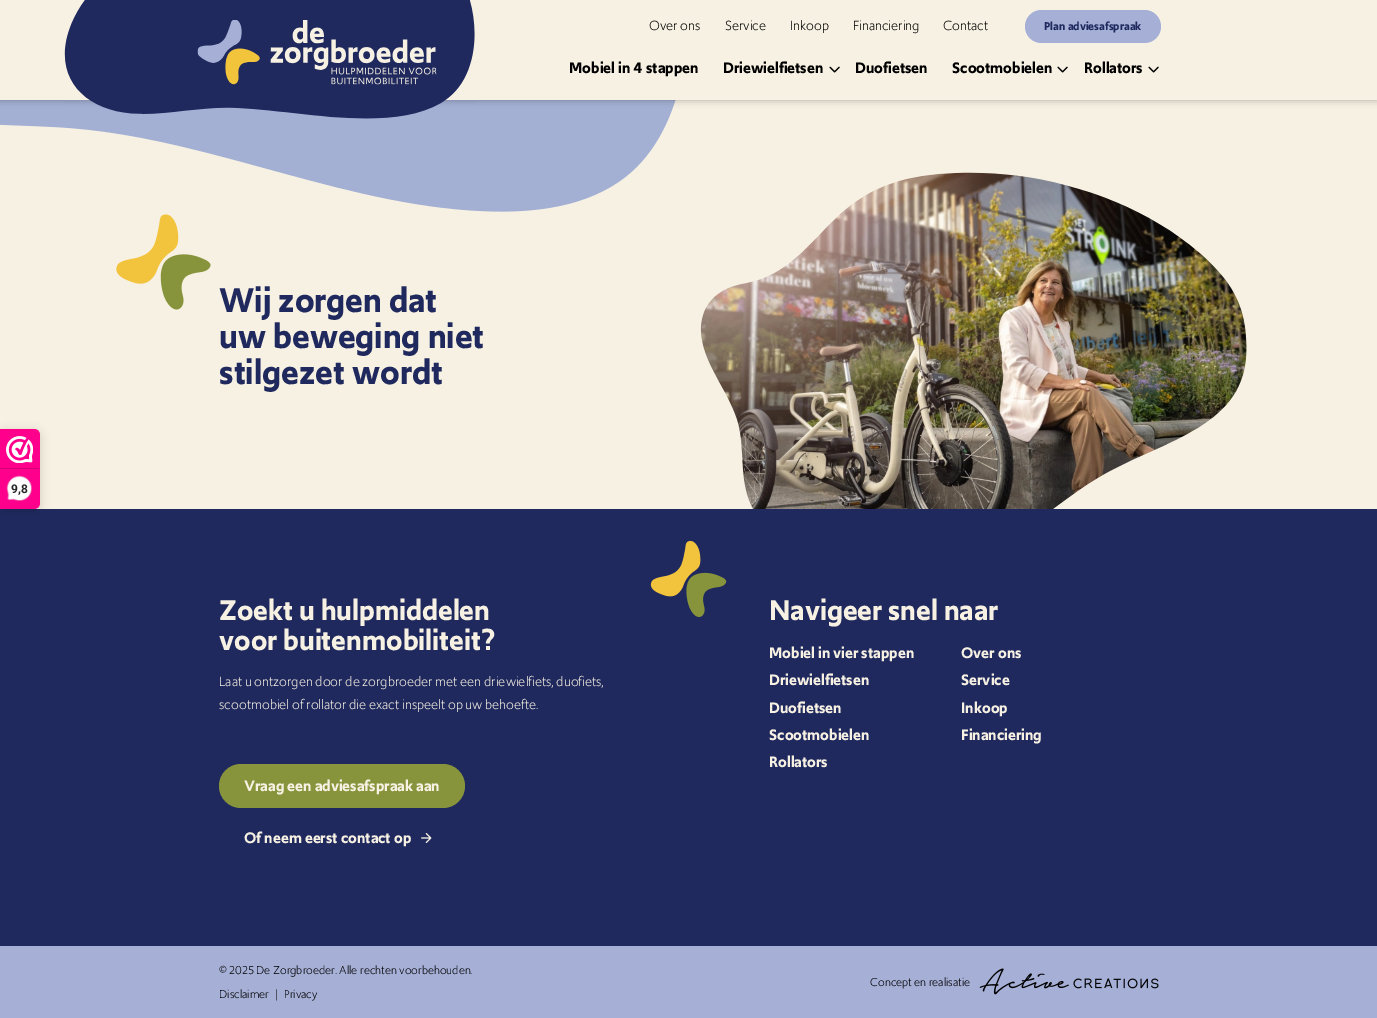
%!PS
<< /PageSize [1377 1018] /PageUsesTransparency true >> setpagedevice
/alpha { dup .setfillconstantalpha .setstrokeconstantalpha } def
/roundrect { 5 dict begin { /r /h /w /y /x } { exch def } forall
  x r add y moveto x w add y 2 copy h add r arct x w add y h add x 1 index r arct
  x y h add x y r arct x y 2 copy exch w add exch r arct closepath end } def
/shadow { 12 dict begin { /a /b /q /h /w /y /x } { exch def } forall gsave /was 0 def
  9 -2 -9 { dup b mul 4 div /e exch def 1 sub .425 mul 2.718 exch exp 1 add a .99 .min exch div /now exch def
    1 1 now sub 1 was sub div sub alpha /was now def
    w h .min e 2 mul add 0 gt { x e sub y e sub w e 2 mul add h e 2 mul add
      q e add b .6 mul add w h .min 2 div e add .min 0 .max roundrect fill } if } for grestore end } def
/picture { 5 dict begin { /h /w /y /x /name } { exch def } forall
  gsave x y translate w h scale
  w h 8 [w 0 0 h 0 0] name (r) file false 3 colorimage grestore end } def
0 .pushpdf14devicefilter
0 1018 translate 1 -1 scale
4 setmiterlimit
0.969 0.945 0.89 setrgbcolor
0 0 1377 1018 rectfill
(img5.rgb) 0 100 676 112 picture
0 setgray
0 0 1377 100 0 4 0.3 shadow
0.969 0.945 0.89 setrgbcolor
0 0 1377 100 rectfill
(img1.rgb) 64 0 411 119 picture
/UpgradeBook-Regular [14 0 0 -14 0 0] selectfont
0 setgray
649 30 moveto (Over ons) show
725 30 moveto (Service) show
790 30 moveto (Inkoop) show
853 30 moveto (Financiering) show
943 30 moveto (Contact) show
/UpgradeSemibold-SemiBold [16 0 0 -16 0 0] selectfont
569 73 moveto (Mobiel in 4 stappen) show
723 73 moveto (Driewielfietsen) show
(img2.rgb) 829 66 11 7 picture
855 73 moveto (Duofietsen) show
952 73 moveto (Scootmobielen) show
(img2.rgb) 1057 66 11 7 picture
1084 73 moveto (Rollators) show
(img2.rgb) 1148 66 11 7 picture
0.651 0.69 0.843 setrgbcolor
1025 10 136 33 16.5 roundrect fill
/UpgradeSemibold-SemiBold [12 0 0 -12 0 0] selectfont
0.122 0.161 0.369 setrgbcolor
1044 30 moveto (Plan adviesafspraak) show
0 509 1377 437 rectfill
0 setgray
0 431 40 80 6 5 0.15 shadow
0.996 0 0.549 setrgbcolor
newpath 0 429 moveto 34 429 lineto 37.5 429 40 431.5 40 435 curveto 40 503 lineto 40 506.5 37.5 509 34 509 curveto 0 509 lineto closepath fill
(img3.rgb) 6 436 27 27 picture
0.847 0 0.467 setrgbcolor
0 468 39 1 rectfill
(img4.rgb) 6 475 26 26 picture
/Roboto-Bold [12 0 0 -12 0 0] selectfont
0.153 0.149 0.149 setrgbcolor
11 493 moveto (9,8) show
(img6.rgb) 116 214 95 96 picture
/UpgradeSemibold-SemiBold [36 0 0 -36 0 0] selectfont
0.122 0.161 0.369 setrgbcolor
219 312 moveto (Wij zorgen dat) show
219 348 moveto (uw beweging niet) show
219 384 moveto (stilgezet wordt) show
(img7.rgb) 700 172 547 337 picture
(img8.rgb) 650 540 77 77 picture
/UpgradeSemibold-SemiBold [30 0 0 -30 0 0] selectfont
0.969 0.945 0.89 setrgbcolor
219 620 moveto (Zoekt u hulpmiddelen) show
219 650 moveto (voor buitenmobiliteit?) show
/UpgradeBook-Regular [14 0 0 -14 0 0] selectfont
219 686 moveto (Laat u ontzorgen door de zorgbroeder met een driewielfiets, duofiets,) show
219 709 moveto (scootmobiel of rollator die exact inspeelt op uw behoefte.) show
0.529 0.58 0.231 setrgbcolor
219 764 246 44 22 roundrect fill
/UpgradeSemibold-SemiBold [16 0 0 -16 0 0] selectfont
0.969 0.945 0.89 setrgbcolor
244 791 moveto (Vraag een adviesafspraak aan) show
244 843 moveto (Of neem eerst contact op) show
(img9.rgb) 421 833 11 10 picture
/UpgradeSemibold-SemiBold [30 0 0 -30 0 0] selectfont
769 620 moveto (Navigeer snel naar) show
/UpgradeSemibold-SemiBold [16 0 0 -16 0 0] selectfont
769 658 moveto (Mobiel in vier stappen) show
961 658 moveto (Over ons) show
769 685 moveto (Driewielfietsen) show
961 685 moveto (Service) show
769 713 moveto (Duofietsen) show
961 713 moveto (Inkoop) show
769 740 moveto (Scootmobielen) show
961 740 moveto (Financiering) show
769 767 moveto (Rollators) show
0.651 0.69 0.843 setrgbcolor
0 946 1377 72 rectfill
/UpgradeBook-Regular [12 0 0 -12 0 0] selectfont
0 setgray
219 974 moveto (© 2025 De Zorgbroeder. Alle rechten voorbehouden.) show
219 998 moveto (Disclaimer) show
275 998 moveto (|) show
284 998 moveto (Privacy) show
870 986 moveto (Concept en realisatie) show
(img10.rgb) 979 968 180 27 picture
.poppdf14devicefilter showpage
